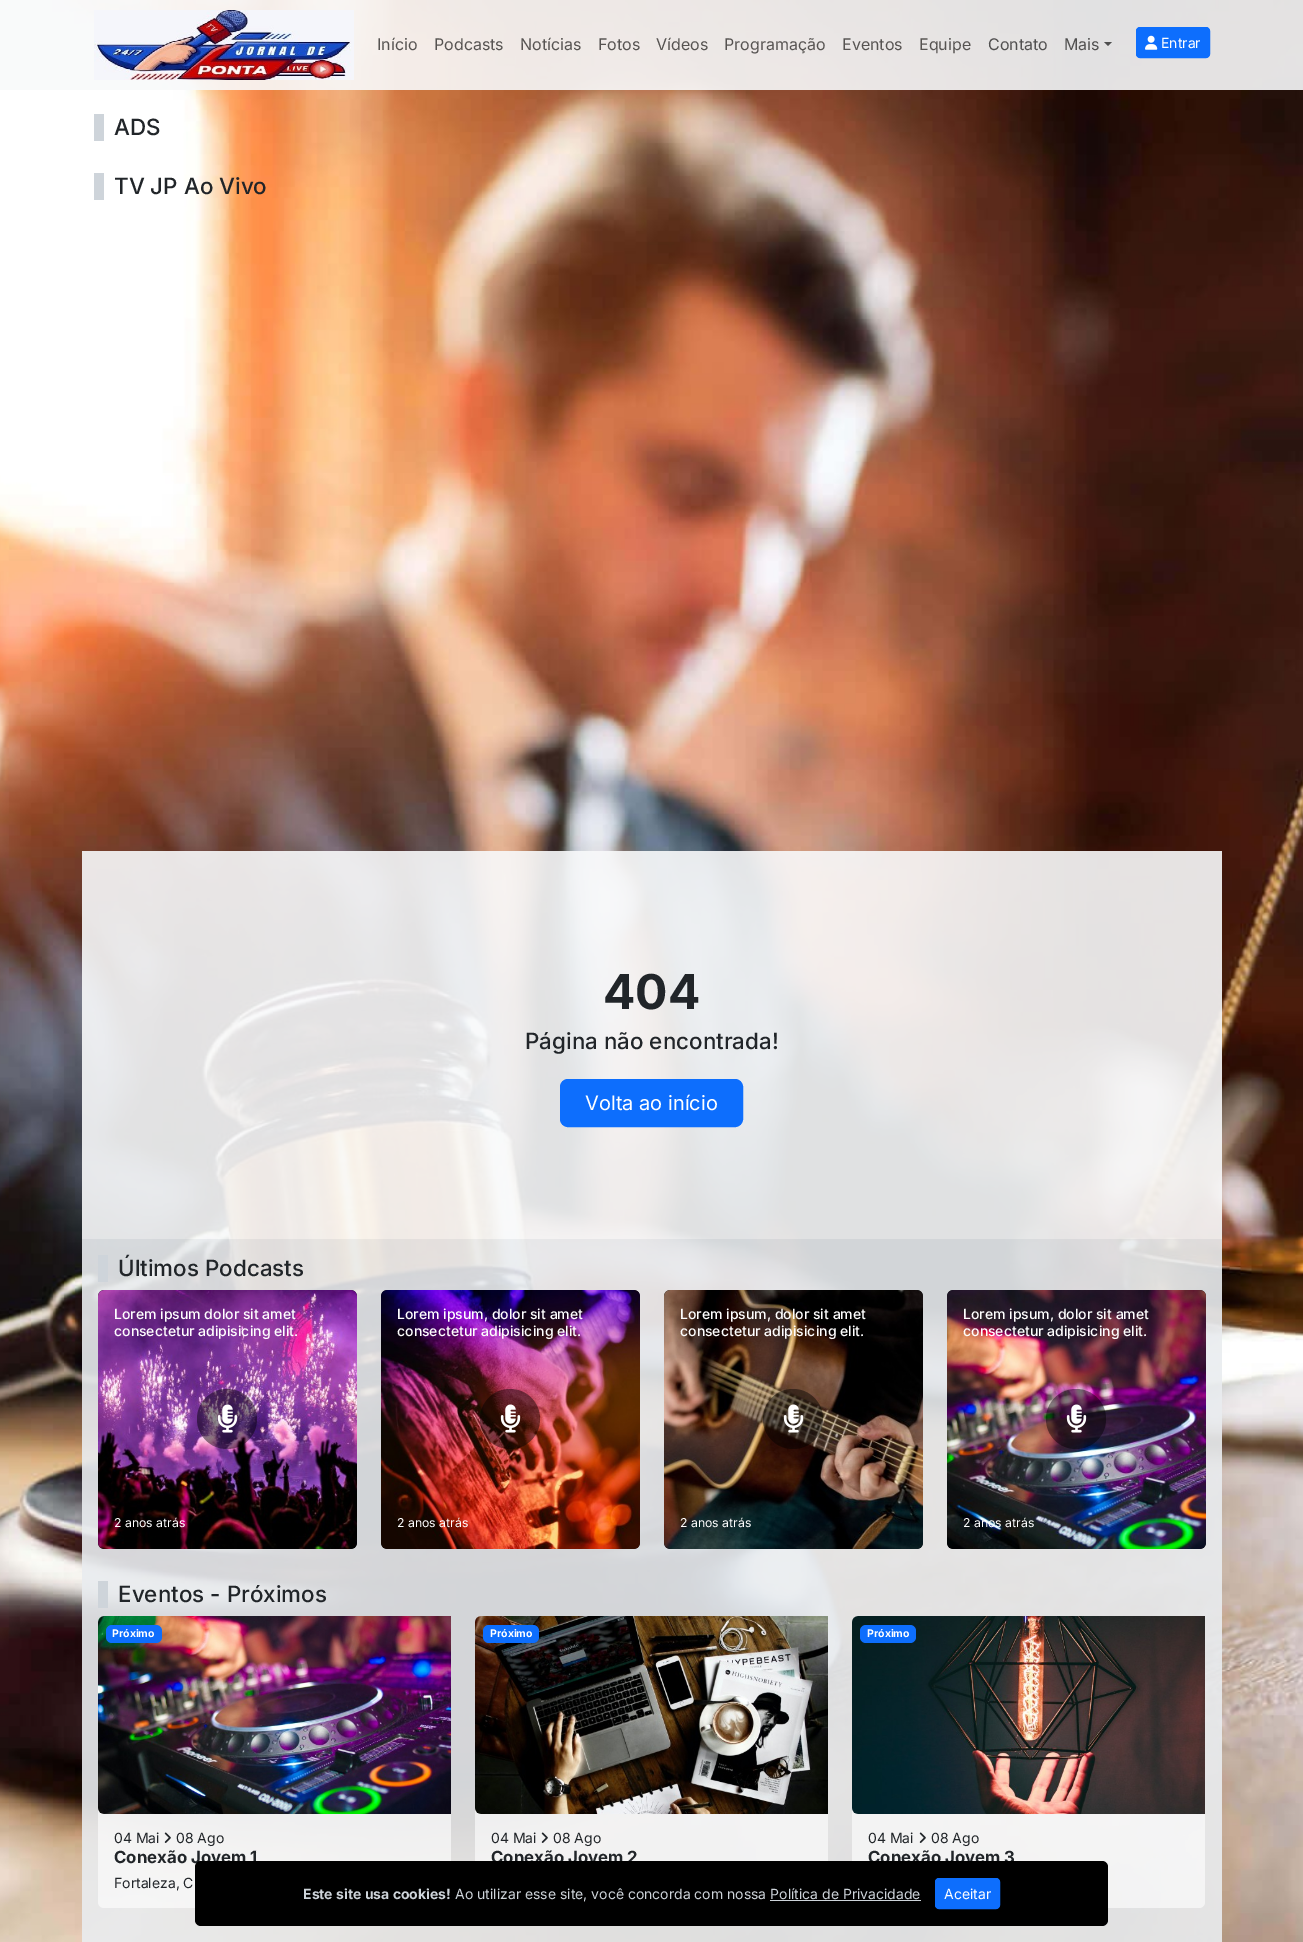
%!PS
<< /PageSize [1303 1942] /PageUsesTransparency true >> setpagedevice
/alpha { dup .setfillconstantalpha .setstrokeconstantalpha } def
/roundrect { 5 dict begin { /r /h /w /y /x } { exch def } forall
  x r add y moveto x w add y 2 copy h add r arct x w add y h add x 1 index r arct
  x y h add x y r arct x y 2 copy exch w add exch r arct closepath end } def
/picture { 5 dict begin { /h /w /y /x /name } { exch def } forall
  gsave x y translate w h scale
  w h 8 [w 0 0 h 0 0] name (r) file false 3 colorimage grestore end } def
0 .pushpdf14devicefilter
0 1942 translate 1 -1 scale
4 setmiterlimit
1 setgray
0 0 1303 1942 rectfill
(img1.rgb) 0 0 1303 1942 picture
0.9 alpha
0.973 0.976 0.98 setrgbcolor
0 0 1303 90 rectfill
1 alpha
(img2.rgb) 94 10 260 70 picture
/Inter-Regular [16 0 0 -16 0 0] selectfont
0.337 0.325 0.318 setrgbcolor
377 50 moveto (Início) show
434 50 moveto (Podcasts) show
520 50 moveto (Notícias) show
598 50 moveto (Fotos) show
656 50 moveto (Vídeos) show
724 50 moveto (Programação) show
842 50 moveto (Eventos) show
919 50 moveto (Equipe) show
0.314 0.31 0.31 setrgbcolor
988 50 moveto (Contato) show
1064 50 moveto (Mais) show
0.31 setgray
newpath 1104 42 moveto 1112 42 lineto 1108 46 lineto closepath fill
0.051 0.431 0.992 setrgbcolor
1136.5 27.5 73 30 3.5 roundrect gsave fill grestore
stroke
(img3.rgb) 1145 35 13 15 picture
/Inter-Regular [14 0 0 -14 0 0] selectfont
1 setgray
1161 48 moveto (Entrar) show
0.808 0.831 0.855 setrgbcolor
94 114 10 27 rectfill
/Inter-Medium [22.4 0 0 -22.4 0 0] selectfont
0.129 0.145 0.161 setrgbcolor
114 135 moveto (ADS) show
0.808 0.831 0.855 setrgbcolor
94 173 10 27 rectfill
0.129 0.145 0.161 setrgbcolor
114 194 moveto (TV JP Ao Vivo) show
0.9 alpha
0.973 0.976 0.98 setrgbcolor
82 851 1140 388 rectfill
/Inter-Bold [48 0 0 -48 0 0] selectfont
1 alpha
0.129 0.145 0.161 setrgbcolor
603 1009 moveto (404) show
/Inter-Medium [22.4 0 0 -22.4 0 0] selectfont
525 1049 moveto (Página não encontrada!) show
0.051 0.431 0.992 setrgbcolor
560.5 1079.5 182 47 7.5 roundrect gsave fill grestore
stroke
/Inter-Regular [20 0 0 -20 0 0] selectfont
1 setgray
585 1110 moveto (Volta ao início) show
0.9 alpha
0.914 0.925 0.937 setrgbcolor
82 1239 1140 703 rectfill
1 alpha
0.808 0.831 0.855 setrgbcolor
98 1255 10 27 rectfill
/Inter-Medium [22.4 0 0 -22.4 0 0] selectfont
0.129 0.145 0.161 setrgbcolor
118 1276 moveto (Últimos Podcasts) show
98 1290 259 259 6 roundrect fill
(img4.rgb) 98 1290 259 259 picture
/Inter-Medium [14 0 0 -14 0 0] selectfont
1 setgray
114 1319 moveto (Lorem ipsum dolor sit amet) show
114 1336 moveto (consectetur adipisicing elit.) show
/Inter-Regular [12.25 0 0 -12.25 0 0] selectfont
114 1527 moveto (2 anos atrás) show
0.45 alpha
0 setgray
newpath 227 1419 30 0 360 arc closepath fill
1 alpha
(img5.rgb) 217 1404 21 29 picture
0.129 0.145 0.161 setrgbcolor
381 1290 259 259 6 roundrect fill
(img6.rgb) 381 1290 259 259 picture
/Inter-Medium [14 0 0 -14 0 0] selectfont
1 setgray
397 1319 moveto (Lorem ipsum, dolor sit amet) show
397 1336 moveto (consectetur adipisicing elit.) show
/Inter-Regular [12.25 0 0 -12.25 0 0] selectfont
397 1527 moveto (2 anos atrás) show
0.45 alpha
0 setgray
newpath 510 1419 30 0 360 arc closepath fill
1 alpha
(img7.rgb) 500 1404 21 29 picture
0.129 0.145 0.161 setrgbcolor
664 1290 259 259 6 roundrect fill
(img8.rgb) 664 1290 259 259 picture
/Inter-Medium [14 0 0 -14 0 0] selectfont
1 setgray
680 1319 moveto (Lorem ipsum, dolor sit amet) show
680 1336 moveto (consectetur adipisicing elit.) show
/Inter-Regular [12.25 0 0 -12.25 0 0] selectfont
680 1527 moveto (2 anos atrás) show
0.45 alpha
0 setgray
newpath 793 1419 30 0 360 arc closepath fill
1 alpha
(img9.rgb) 783 1404 21 29 picture
0.129 0.145 0.161 setrgbcolor
947 1290 259 259 6 roundrect fill
(img10.rgb) 947 1290 259 259 picture
/Inter-Medium [14 0 0 -14 0 0] selectfont
1 setgray
963 1319 moveto (Lorem ipsum, dolor sit amet) show
963 1336 moveto (consectetur adipisicing elit.) show
/Inter-Regular [12.25 0 0 -12.25 0 0] selectfont
963 1527 moveto (2 anos atrás) show
0.45 alpha
0 setgray
newpath 1076 1419 30 0 360 arc closepath fill
1 alpha
(img11.rgb) 1066 1404 21 29 picture
0.808 0.831 0.855 setrgbcolor
98 1581 10 27 rectfill
/Inter-Medium [22.4 0 0 -22.4 0 0] selectfont
0.129 0.145 0.161 setrgbcolor
118 1602 moveto (Eventos - Próximos) show
0.6 alpha
1 setgray
98 1616 353 292 6 roundrect fill
1 alpha
(img12.rgb) 98 1616 353 198 picture
0.051 0.431 0.992 setrgbcolor
106 1625 56 18 6 roundrect fill
/Inter-Bold [10.5 0 0 -10.5 0 0] selectfont
1 setgray
112 1637 moveto (Próximo) show
/Inter-Regular [14 0 0 -14 0 0] selectfont
0.129 0.145 0.161 setrgbcolor
114 1843 moveto (04 Mai) show
(img13.rgb) 164 1832 7 11 picture
176 1843 moveto (08 Ago) show
/Inter-Bold [16.75 0 0 -16.75 0 0] selectfont
114 1863 moveto (Conexão Jovem 1) show
/Inter-Regular [14 0 0 -14 0 0] selectfont
114 1888 moveto (Fortaleza, C) show
0.6 alpha
1 setgray
475 1616 353 292 6 roundrect fill
1 alpha
(img14.rgb) 475 1616 353 198 picture
0.051 0.431 0.992 setrgbcolor
483 1625 56 18 6 roundrect fill
/Inter-Bold [10.5 0 0 -10.5 0 0] selectfont
1 setgray
490 1637 moveto (Próximo) show
/Inter-Regular [14 0 0 -14 0 0] selectfont
0.129 0.145 0.161 setrgbcolor
491 1843 moveto (04 Mai) show
(img15.rgb) 541 1832 7 11 picture
553 1843 moveto (08 Ago) show
/Inter-Bold [16.75 0 0 -16.75 0 0] selectfont
491 1863 moveto (Conexão Jovem 2) show
0.6 alpha
1 setgray
852 1616 353 292 6 roundrect fill
1 alpha
(img16.rgb) 852 1616 353 198 picture
0.051 0.431 0.992 setrgbcolor
860 1625 56 18 6 roundrect fill
/Inter-Bold [10.5 0 0 -10.5 0 0] selectfont
1 setgray
867 1637 moveto (Próximo) show
/Inter-Regular [14 0 0 -14 0 0] selectfont
0.129 0.145 0.161 setrgbcolor
868 1843 moveto (04 Mai) show
(img17.rgb) 919 1832 7 11 picture
931 1843 moveto (08 Ago) show
/Inter-Bold [16.75 0 0 -16.75 0 0] selectfont
868 1863 moveto (Conexão Jovem 3) show
0 setgray
195 1861 913 65 6 roundrect fill
/Inter-Bold [14 0 0 -14 0 0] selectfont
0.808 0.831 0.855 setrgbcolor
303 1899 moveto (Este site usa cookies!) show
/Inter-Regular [14 0 0 -14 0 0] selectfont
455 1899 moveto (Ao utilizar esse site, você concorda com nossa Política de Privacidade) show
0.051 0.431 0.992 setrgbcolor
935.5 1878.5 64 30 3.5 roundrect gsave fill grestore
stroke
1 setgray
944 1899 moveto (Aceitar) show
0.808 0.831 0.855 setrgbcolor
770 1900 151 1 rectfill
.poppdf14devicefilter showpage
